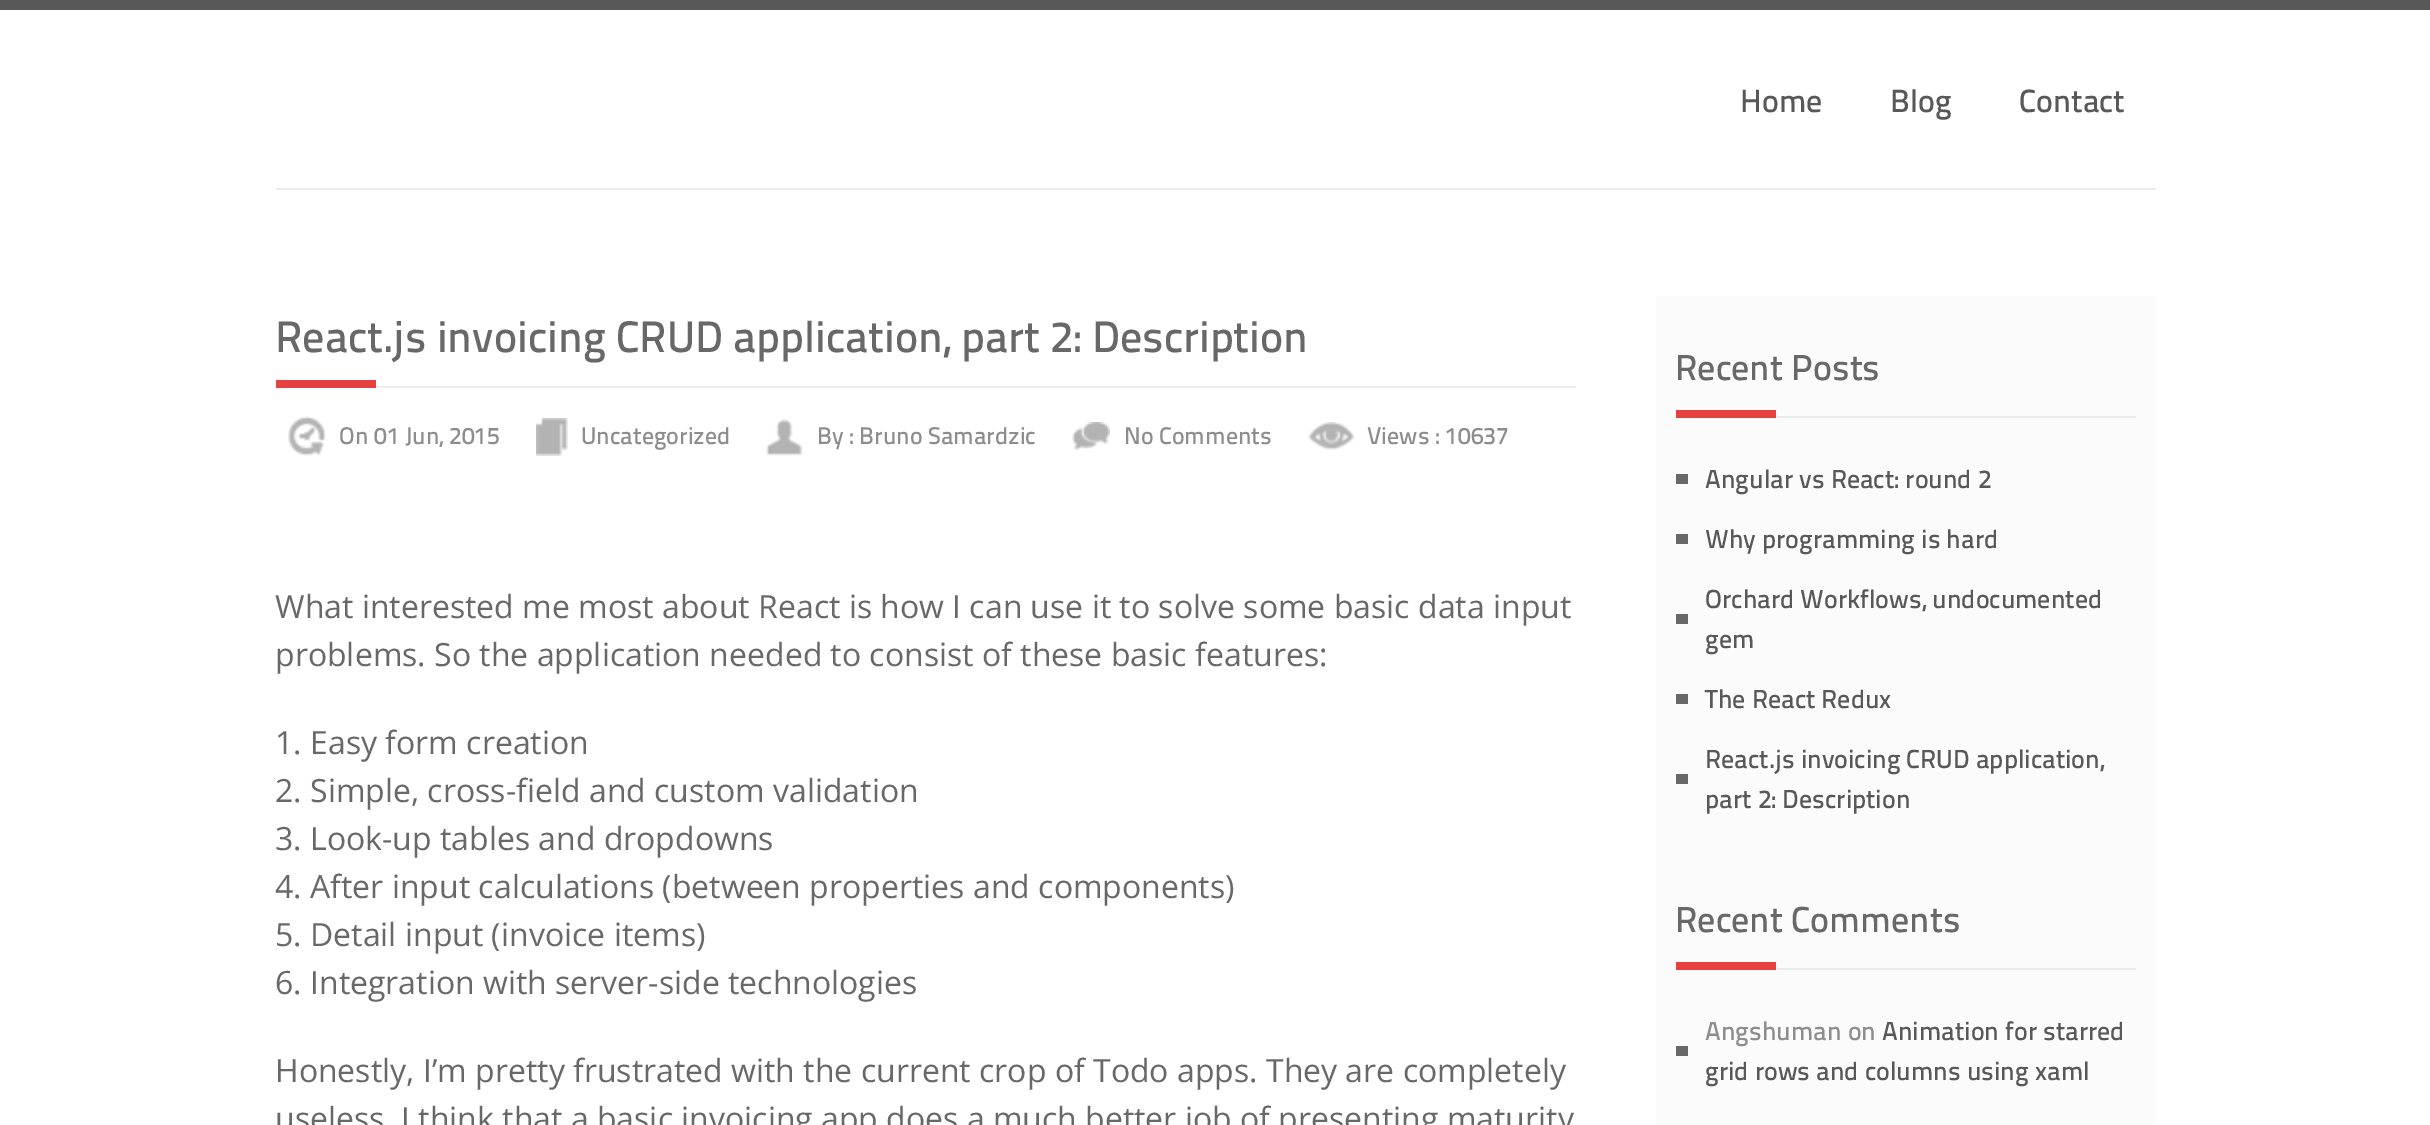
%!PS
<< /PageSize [2430 1125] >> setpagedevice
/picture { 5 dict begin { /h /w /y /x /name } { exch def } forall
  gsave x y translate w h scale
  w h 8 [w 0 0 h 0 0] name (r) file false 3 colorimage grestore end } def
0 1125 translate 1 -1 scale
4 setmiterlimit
1 setgray
0 0 2430 1125 rectfill
0.345 setgray
0 0 2430 10 rectfill
/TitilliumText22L-Medium [32 0 0 -32 0 0] selectfont
1740 112 moveto (Home) show
1890 112 moveto (Blog) show
2019 112 moveto (Contact) show
0.925 setgray
276 188 1880 2 rectfill
376 386 1200 2 rectfill
/TitilliumText22L-Medium [44 0 0 -44 0 0] selectfont
0.408 setgray
275 352 moveto (React.js invoicing CRUD application, part 2: Description) show
0.902 0.255 0.255 setrgbcolor
276 380 100 8 rectfill
(img1.rgb) 288 416 38 40 picture
/TitilliumText22L-Medium [24 0 0 -24 0 0] selectfont
0.553 setgray
339 444 moveto (On 01 Jun, 2015) show
(img2.rgb) 536 418 32 38 picture
581 444 moveto (Uncategorized) show
(img3.rgb) 766 419 37 37 picture
817 444 moveto (By : Bruno Samardzic) show
(img4.rgb) 1072 422 38 28 picture
1124 444 moveto (No Comments) show
(img5.rgb) 1308 422 46 28 picture
1367 444 moveto (Views : 10637) show
/OpenSans-Regular [32 0 0 -32 0 0] selectfont
0.408 setgray
275 618 moveto (What interested me most about React is how I can use it to solve some basic data input) show
275 666 moveto (problems. So the application needed to consist of these basic features:) show
275 754 moveto (1. Easy form creation) show
275 802 moveto (2. Simple, cross-field and custom validation) show
275 850 moveto (3. Look-up tables and dropdowns) show
275 898 moveto (4. After input calculations \(between properties and components\)) show
275 946 moveto (5. Detail input \(invoice items\)) show
275 994 moveto (6. Integration with server-side technologies) show
275 1082 moveto (Honestly, I’m pretty frustrated with the current crop of Todo apps. They are completely) show
275 1130 moveto (useless. I think that a basic invoicing app does a much better job of presenting maturity) show
0.984 setgray
1656 296 500 829 rectfill
0.925 setgray
1776 416 360 2 rectfill
/TitilliumText22L-Medium [36 0 0 -36 0 0] selectfont
0.408 setgray
1675 380 moveto (Recent Posts) show
0.902 0.255 0.255 setrgbcolor
1676 410 100 8 rectfill
0.408 setgray
1676 474 12 10 rectfill
/TitilliumText22L-Medium [26 0 0 -26 0 0] selectfont
0.345 setgray
1705 488 moveto (Angular vs React: round 2) show
0.408 setgray
1676 534 12 10 rectfill
0.345 setgray
1705 548 moveto (Why programming is hard) show
0.408 setgray
1676 614 12 10 rectfill
0.345 setgray
1705 608 moveto (Orchard Workflows, undocumented) show
1705 648 moveto (gem) show
0.408 setgray
1676 694 12 10 rectfill
0.345 setgray
1705 708 moveto (The React Redux) show
0.408 setgray
1676 774 12 10 rectfill
0.345 setgray
1705 768 moveto (React.js invoicing CRUD application,) show
1705 808 moveto (part 2: Description) show
0.925 setgray
1776 968 360 2 rectfill
/TitilliumText22L-Medium [36 0 0 -36 0 0] selectfont
0.408 setgray
1675 932 moveto (Recent Comments) show
0.902 0.255 0.255 setrgbcolor
1676 962 100 8 rectfill
0.408 setgray
1676 1046 12 10 rectfill
/TitilliumText22L-Medium [26 0 0 -26 0 0] selectfont
0.553 setgray
1705 1040 moveto (Angshuman on) show
0.345 setgray
1882 1040 moveto (Animation for starred) show
1705 1080 moveto (grid rows and columns using xaml) show
showpage
